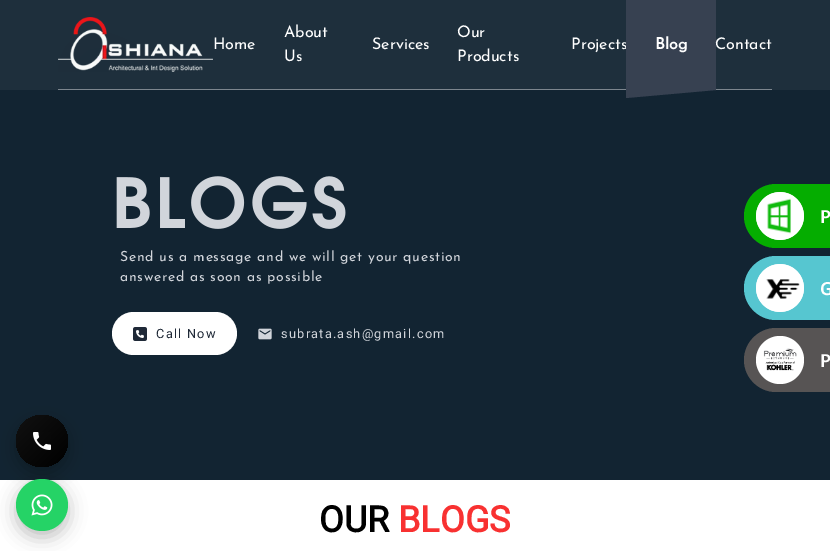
%!PS
<< /PageSize [830 551] /PageUsesTransparency true >> setpagedevice
/alpha { dup .setfillconstantalpha .setstrokeconstantalpha } def
/roundrect { 5 dict begin { /r /h /w /y /x } { exch def } forall
  x r add y moveto x w add y 2 copy h add r arct x w add y h add x 1 index r arct
  x y h add x y r arct x y 2 copy exch w add exch r arct closepath end } def
/shadow { 12 dict begin { /a /b /q /h /w /y /x } { exch def } forall gsave /was 0 def
  9 -2 -9 { dup b mul 4 div /e exch def 1 sub .425 mul 2.718 exch exp 1 add a .99 .min exch div /now exch def
    1 1 now sub 1 was sub div sub alpha /was now def
    w h .min e 2 mul add 0 gt { x e sub y e sub w e 2 mul add h e 2 mul add
      q e add b .6 mul add w h .min 2 div e add .min 0 .max roundrect fill } if } for grestore end } def
/picture { 5 dict begin { /h /w /y /x /name } { exch def } forall
  gsave x y translate w h scale
  w h 8 [w 0 0 h 0 0] name (r) file false 3 colorimage grestore end } def
0 .pushpdf14devicefilter
0 551 translate 1 -1 scale
4 setmiterlimit
1 setgray
0 0 830 551 rectfill
0.118 0.184 0.235 setrgbcolor
0 0 830 90 rectfill
0.49 0.525 0.557 setrgbcolor
58 89 714 1 rectfill
(img1.rgb) 58 17 155 55 picture
/JosefinSans-Thin [16 0 0 -16 0 0] selectfont
1 setgray
213 49 moveto (Home) show
284 37 moveto (About) show
284 61 moveto (Us) show
372 49 moveto (Services) show
457 37 moveto (Our) show
457 61 moveto (Products) show
571 49 moveto (Projects) show
0.071 0.141 0.196 setrgbcolor
0 90 830 390 rectfill
0.216 0.255 0.318 setrgbcolor
newpath 626 0 moveto 626 98 lineto 716 90 lineto 716 0 lineto closepath fill
/JosefinSans-Bold [16 0 0 -16 0 0] selectfont
1 setgray
655 49 moveto (Blog) show
/JosefinSans-Thin [16 0 0 -16 0 0] selectfont
715 49 moveto (Contact) show
0 setgray
16 421 52 52 26 9 0.25 shadow
gsave newpath 42 441 26 0 360 arc closepath clip newpath
<< /ShadingType 2 /ColorSpace /DeviceRGB /Coords [16 415 68 467] /Extend [true true] /Function << /FunctionType 2 /Domain [0 1] /C0 [0.067 0.067 0.067] /C1 [0 0 0] /N 1 >> >> shfill grestore
(img2.rgb) 33 432 18 18 picture
16 485 52 52 26 9 0.25 shadow
0.145 0.827 0.4 setrgbcolor
newpath 42 505 26 0 360 arc closepath fill
(img3.rgb) 31 494 22 22 picture
(img4.rgb) 116 176 230 53 picture
/JosefinSans-Thin [14 0 0 -14 0 0] selectfont
0.82 0.835 0.859 setrgbcolor
120 261 moveto 0.7 0 (Send us a message and we will get your question) ashow
120 281 moveto 0.7 0 (answered as soon as possible) ashow
1 setgray
112 312 125 43 21.5 roundrect fill
(img5.rgb) 133 327 14 14 picture
/Roboto-Regular [12.75 0 0 -12.75 0 0] selectfont
0.122 0.161 0.216 setrgbcolor
156 338 moveto 1.25 0 (Call Now) ashow
(img6.rgb) 258 328 14 12 picture
0.82 0.835 0.859 setrgbcolor
281 338 moveto 1.25 0 (subrata.ash@gmail.com) ashow
/Roboto-Bold [36 0 0 -36 0 0] selectfont
0 setgray
319 532 moveto (OUR) show
0.973 0.192 0.192 setrgbcolor
398 532 moveto (BLOGS) show
0.02 0.678 0 setrgbcolor
newpath 776 184 moveto 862 184 lineto 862 248 lineto 776 248 lineto 758.5 248 744 233.5 744 216 curveto 744 198.5 758.5 184 776 184 curveto closepath fill
(img7.rgb) 756 192 48 48 picture
/NotoSans-SemiBold [18 0 0 -18 0 0] selectfont
1 setgray
820 223 moveto (P) show
0.337 0.776 0.816 setrgbcolor
newpath 776 256 moveto 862 256 lineto 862 320 lineto 776 320 lineto 758.5 320 744 305.5 744 288 curveto 744 270.5 758.5 256 776 256 curveto closepath fill
(img8.rgb) 756 264 48 48 picture
1 setgray
820 295 moveto (G) show
0.341 0.329 0.329 setrgbcolor
newpath 776 328 moveto 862 328 lineto 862 392 lineto 776 392 lineto 758.5 392 744 377.5 744 360 curveto 744 342.5 758.5 328 776 328 curveto closepath fill
1 setgray
newpath 780 360 24 0 360 arc closepath fill
(img9.rgb) 763 348 34 23 picture
820 367 moveto (P) show
.poppdf14devicefilter showpage
